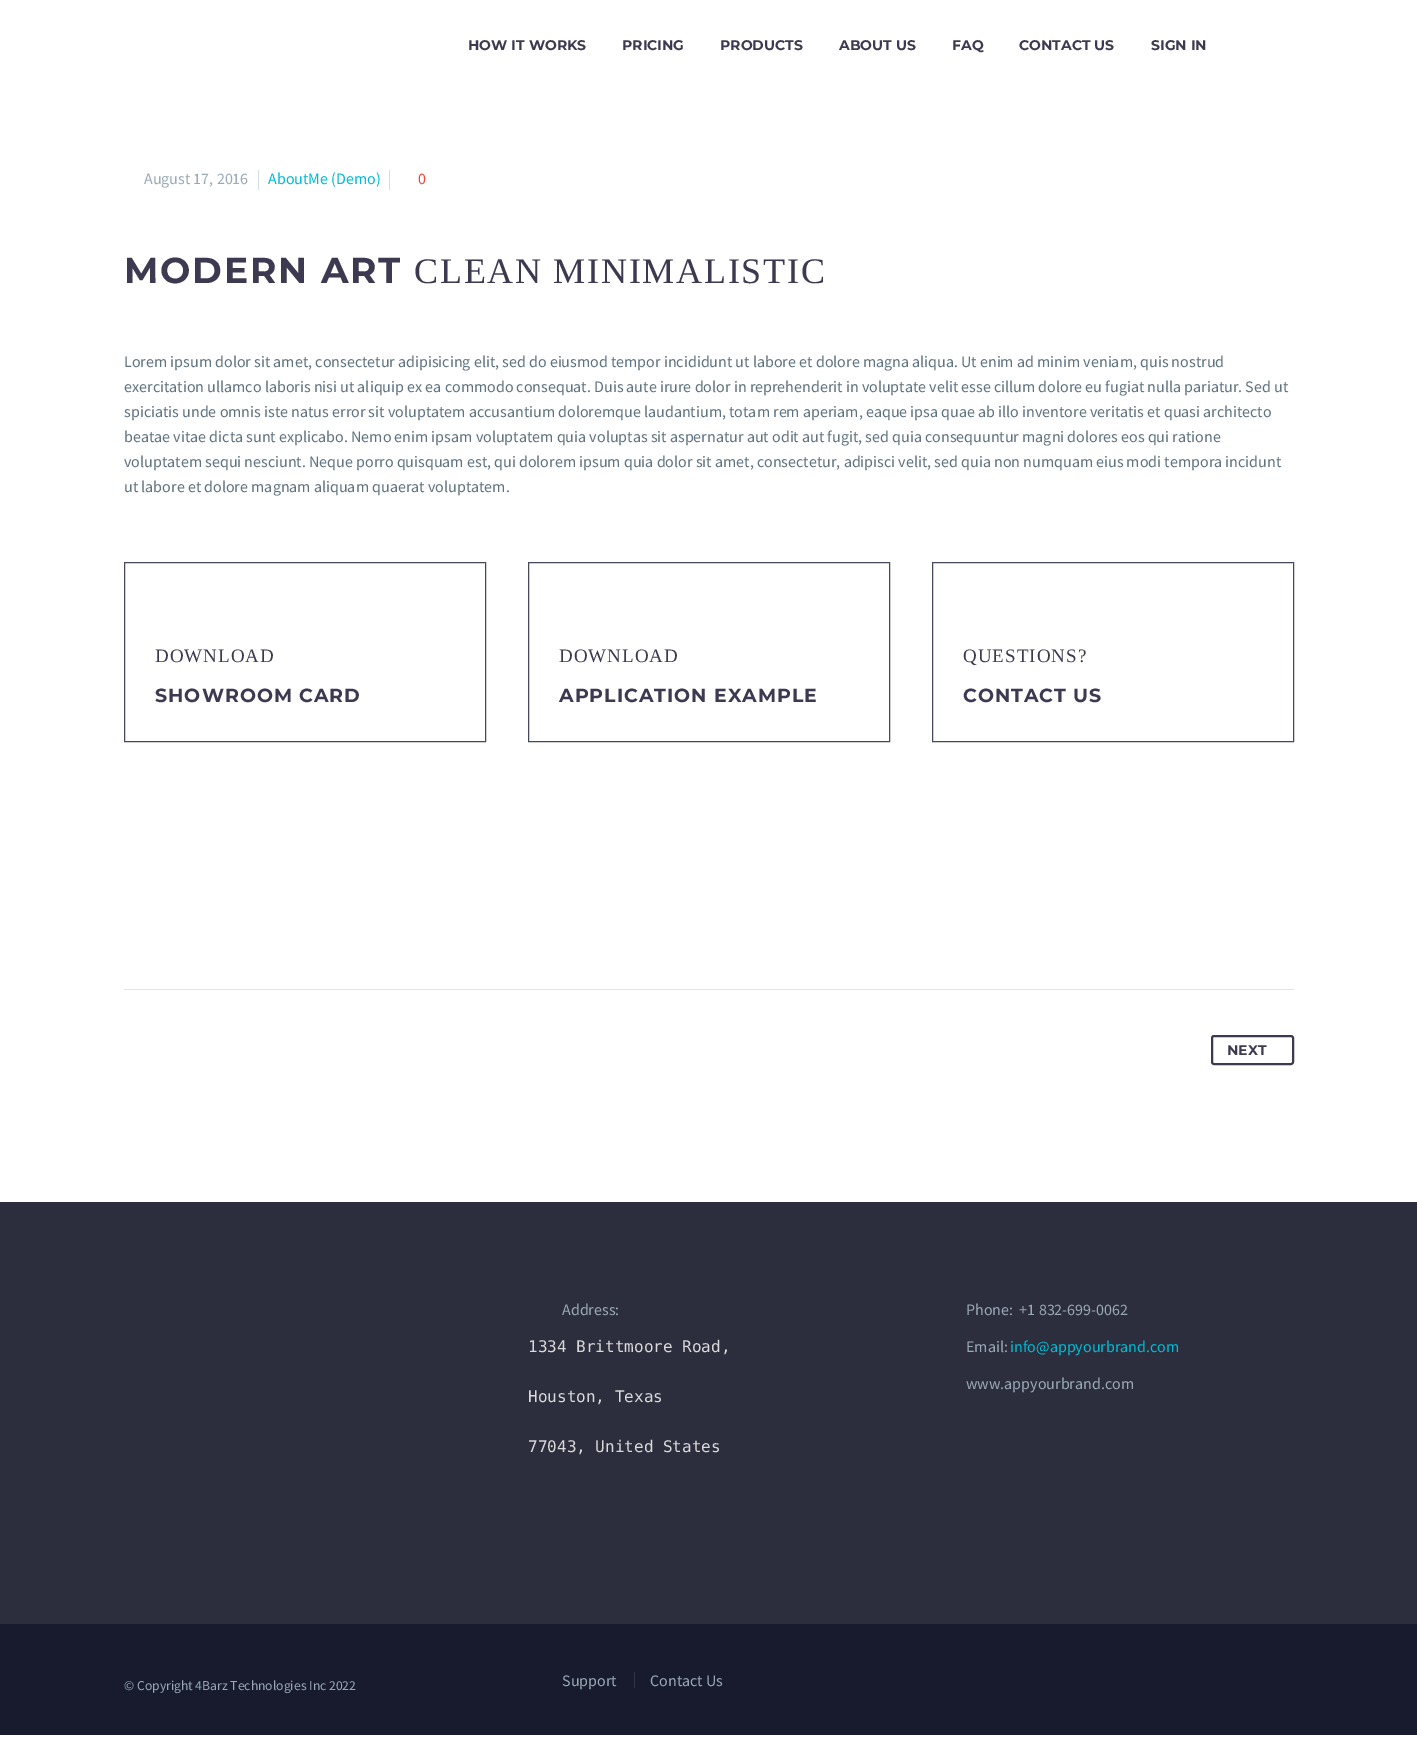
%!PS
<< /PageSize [1417 1741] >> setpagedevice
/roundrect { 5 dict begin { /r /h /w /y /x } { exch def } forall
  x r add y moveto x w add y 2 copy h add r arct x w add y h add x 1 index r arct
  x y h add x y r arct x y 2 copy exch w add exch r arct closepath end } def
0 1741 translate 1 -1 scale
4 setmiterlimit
1 setgray
0 0 1417 1741 rectfill
/Montserrat-Bold [14 0 0 -14 0 0] selectfont
0.235 0.224 0.314 setrgbcolor
468 50 moveto (HOW IT WORKS) show
622 50 moveto (PRICING) show
720 50 moveto (PRODUCTS) show
839 50 moveto (ABOUT US) show
952 50 moveto (FAQ) show
1019 50 moveto (CONTACT US) show
1151 50 moveto (SIGN IN) show
/SourceSansPro-Regular [16 0 0 -16 0 0] selectfont
0.6 0.663 0.71 setrgbcolor
144 184 moveto (August 17, 2016) show
0.831 0.871 0.882 setrgbcolor
258 170 1 20 rectfill
0 0.737 0.831 setrgbcolor
268 184 moveto (AboutMe \(Demo\)) show
0.831 0.871 0.882 setrgbcolor
389 170 1 20 rectfill
0.957 0.263 0.212 setrgbcolor
418 184 moveto (0) show
/Montserrat-Bold [36 0 0 -36 0 0] selectfont
0.235 0.224 0.314 setrgbcolor
124 283 moveto 1.75 0 (MODERN ART) ashow
/LiberationSerif-Regular [36 0 0 -36 0 0] selectfont
414 283 moveto 1.75 0 (CLEAN MINIMALISTIC) ashow
/SourceSansPro-Regular [16 0 0 -16 0 0] selectfont
0.373 0.447 0.498 setrgbcolor
124 367 moveto (Lorem ipsum dolor sit amet, consectetur adipisicing elit, sed do eiusmod tempor incididunt ut labore et dolore magna aliqua. Ut enim ad minim veniam, quis nostrud) show
124 392 moveto (exercitation ullamco laboris nisi ut aliquip ex ea commodo consequat. Duis aute irure dolor in reprehenderit in voluptate velit esse cillum dolore eu fugiat nulla pariatur. Sed ut) show
124 417 moveto (spiciatis unde omnis iste natus error sit voluptatem accusantium doloremque laudantium, totam rem aperiam, eaque ipsa quae ab illo inventore veritatis et quasi architecto) show
124 442 moveto (beatae vitae dicta sunt explicabo. Nemo enim ipsam voluptatem quia voluptas sit aspernatur aut odit aut fugit, sed quia consequuntur magni dolores eos qui ratione) show
124 467 moveto (voluptatem sequi nesciunt. Neque porro quisquam est, qui dolorem ipsum quia dolor sit amet, consectetur, adipisci velit, sed quia non numquam eius modi tempora incidunt) show
124 492 moveto (ut labore et dolore magnam aliquam quaerat voluptatem.) show
0.275 0.282 0.361 setrgbcolor
124.5 562.5 361 179 rectstroke
/LiberationSerif-Regular [19 0 0 -19 0 0] selectfont
0.235 0.224 0.314 setrgbcolor
155 662 moveto 1 0 (DOWNLOAD) ashow
/Montserrat-Bold [19 0 0 -19 0 0] selectfont
155 702 moveto 1 0 (SHOWROOM CARD) ashow
0.275 0.282 0.361 setrgbcolor
528.5 562.5 361 179 rectstroke
/LiberationSerif-Regular [19 0 0 -19 0 0] selectfont
0.235 0.224 0.314 setrgbcolor
559 662 moveto 1 0 (DOWNLOAD) ashow
/Montserrat-Bold [19 0 0 -19 0 0] selectfont
559 702 moveto 1 0 (APPLICATION EXAMPLE) ashow
0.275 0.282 0.361 setrgbcolor
932.5 562.5 361 179 rectstroke
/LiberationSerif-Regular [19 0 0 -19 0 0] selectfont
0.235 0.224 0.314 setrgbcolor
963 662 moveto 1 0 (QUESTIONS?) ashow
/Montserrat-Bold [19 0 0 -19 0 0] selectfont
963 702 moveto 1 0 (CONTACT US) ashow
0.875 0.898 0.91 setrgbcolor
124 989 1170 1 rectfill
0.235 0.224 0.314 setrgbcolor
2 setlinewidth
1212 1036 81 28 2 roundrect stroke
/Montserrat-Bold [14 0 0 -14 0 0] selectfont
1227 1055 moveto (NEXT) show
0.173 0.18 0.239 setrgbcolor
0 1202 1417 422 rectfill
/SourceSansPro-Regular [16 0 0 -16 0 0] selectfont
0.6 0.663 0.71 setrgbcolor
562 1315 moveto (Address:) show
/DejaVuSansMono-Regular [16 0 0 -16 0 0] selectfont
0.851 setgray
528 1352 moveto (1334 Brittmoore Road,) show
528 1402 moveto (Houston, Texas) show
528 1452 moveto (77043, United States) show
/SourceSansPro-Regular [16 0 0 -16 0 0] selectfont
0.6 0.663 0.71 setrgbcolor
966 1315 moveto (Phone:  +1 832-699-0062) show
966 1352 moveto (Email:) show
0 0.737 0.831 setrgbcolor
1010 1352 moveto (info@appyourbrand.com) show
0.6 0.663 0.71 setrgbcolor
966 1389 moveto (www.appyourbrand.com) show
0.09 0.106 0.176 setrgbcolor
0 1624 1417 111 rectfill
/SourceSansPro-Regular [13.6 0 0 -13.6 0 0] selectfont
0.6 0.663 0.71 setrgbcolor
124 1690 moveto (© Copyright 4Barz Technologies Inc 2022) show
/SourceSansPro-Regular [16 0 0 -16 0 0] selectfont
562 1686 moveto (Support) show
0.2 0.192 0.275 setrgbcolor
634 1672 1 16 rectfill
0.6 0.663 0.71 setrgbcolor
650 1686 moveto (Contact Us) show
showpage
